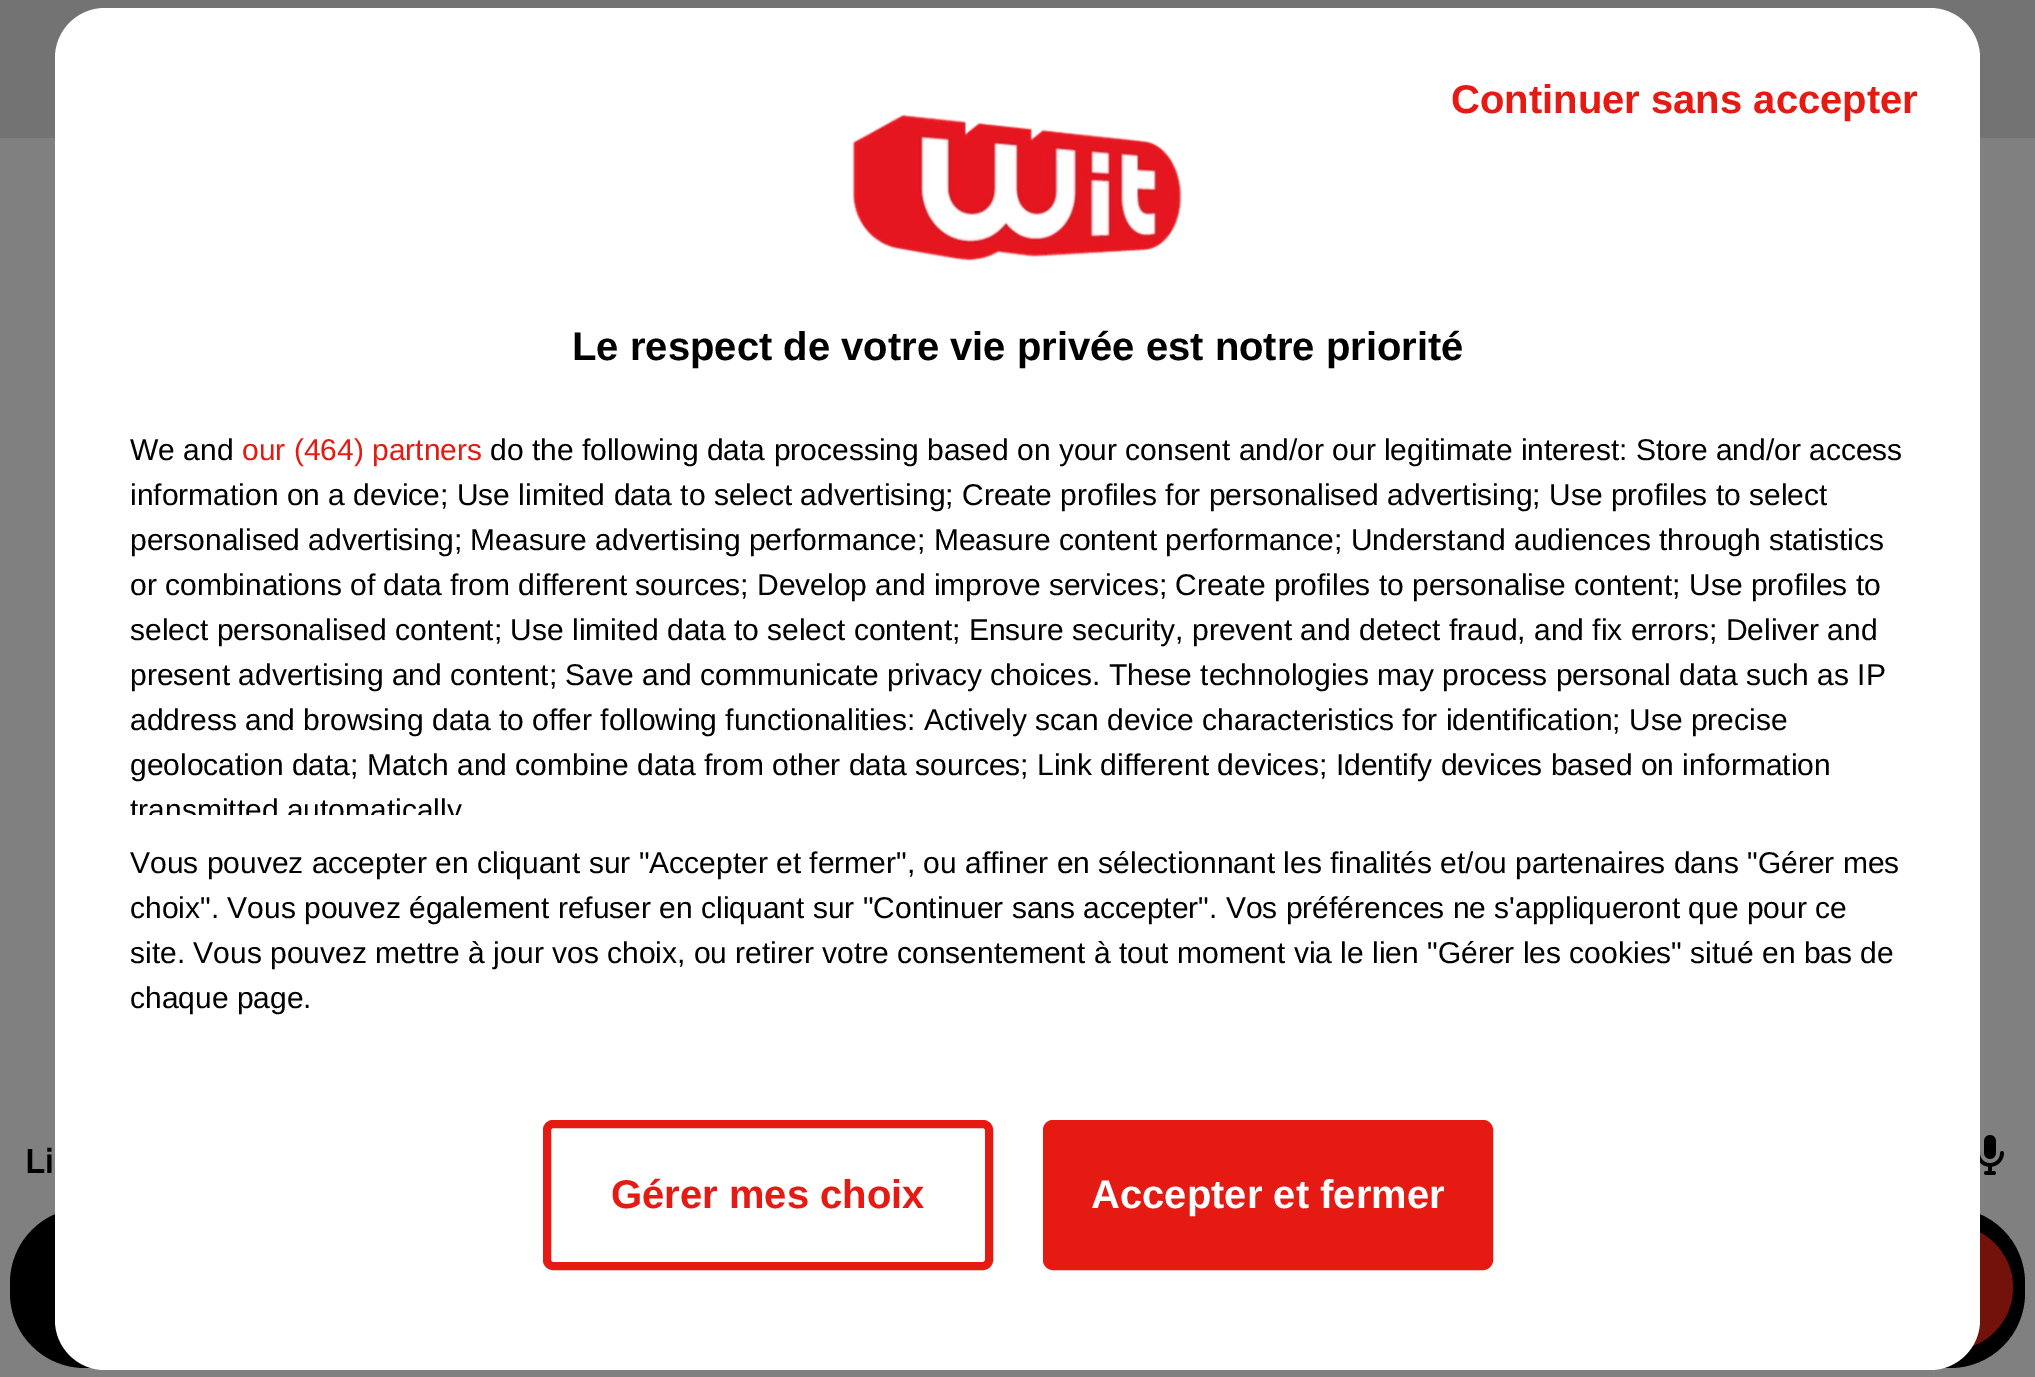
%!PS
<< /PageSize [2035 1377] >> setpagedevice
/roundrect { 5 dict begin { /r /h /w /y /x } { exch def } forall
  x r add y moveto x w add y 2 copy h add r arct x w add y h add x 1 index r arct
  x y h add x y r arct x y 2 copy exch w add exch r arct closepath end } def
/picture { 5 dict begin { /h /w /y /x /name } { exch def } forall
  gsave x y translate w h scale
  w h 8 [w 0 0 h 0 0] name (r) file false 3 colorimage grestore end } def
0 1377 translate 1 -1 scale
4 setmiterlimit
0.502 setgray
0 0 2035 1377 rectfill
0.451 setgray
0 0 2035 138 rectfill
/Archivo-SemiBold [35 0 0 -35 0 0] selectfont
0 setgray
25 1173 moveto (Li) show
(img1.rgb) 1980 1135 24 40 picture
10 1208 2015 160 75 roundrect fill
0.447 0.071 0.039 setrgbcolor
newpath 1950.5 1287.5 62.5 0 360 arc closepath fill
1 setgray
55 8 1925 1362 50 roundrect fill
/LiberationSans-Bold [40 0 0 -40 0 0] selectfont
0.898 0.102 0.075 setrgbcolor
1451 113 moveto (Continuer sans accepter) show
8 setlinewidth
547 1124 442 142 6 roundrect stroke
611 1208 moveto (Gérer mes choix) show
1047 1124 442 142 6 roundrect gsave fill grestore
stroke
1 setgray
1091 1208 moveto (Accepter et fermer) show
(img2.rgb) 852 114 330 147 picture
0 setgray
572 360 moveto (Le respect de votre vie privée est notre priorité) show
/LiberationSans-Regular [30 0 0 -30 0 0] selectfont
130 460 moveto (We and) show
0.898 0.102 0.075 setrgbcolor
242 460 moveto (our \(464\) partners) show
0 setgray
490 460 moveto (do the following data processing based on your consent and/or our legitimate interest: Store and/or access) show
130 505 moveto (information on a device; Use limited data to select advertising; Create profiles for personalised advertising; Use profiles to select) show
130 550 moveto (personalised advertising; Measure advertising performance; Measure content performance; Understand audiences through statistics) show
130 595 moveto (or combinations of data from different sources; Develop and improve services; Create profiles to personalise content; Use profiles to) show
130 640 moveto (select personalised content; Use limited data to select content; Ensure security, prevent and detect fraud, and fix errors; Deliver and) show
130 685 moveto (present advertising and content; Save and communicate privacy choices. These technologies may process personal data such as IP) show
130 730 moveto (address and browsing data to offer following functionalities: Actively scan device characteristics for identification; Use precise) show
130 775 moveto (geolocation data; Match and combine data from other data sources; Link different devices; Identify devices based on information) show
gsave
105 403 1825 412 rectclip
130 820 moveto (transmitted automatically) show
grestore
130 873 moveto (Vous pouvez accepter en cliquant sur "Accepter et fermer", ou affiner en sélectionnant les finalités et/ou partenaires dans "Gérer mes) show
130 918 moveto (choix". Vous pouvez également refuser en cliquant sur "Continuer sans accepter". Vos préférences ne s'appliqueront que pour ce) show
130 963 moveto (site. Vous pouvez mettre à jour vos choix, ou retirer votre consentement à tout moment via le lien "Gérer les cookies" situé en bas de) show
130 1008 moveto (chaque page.) show
showpage
